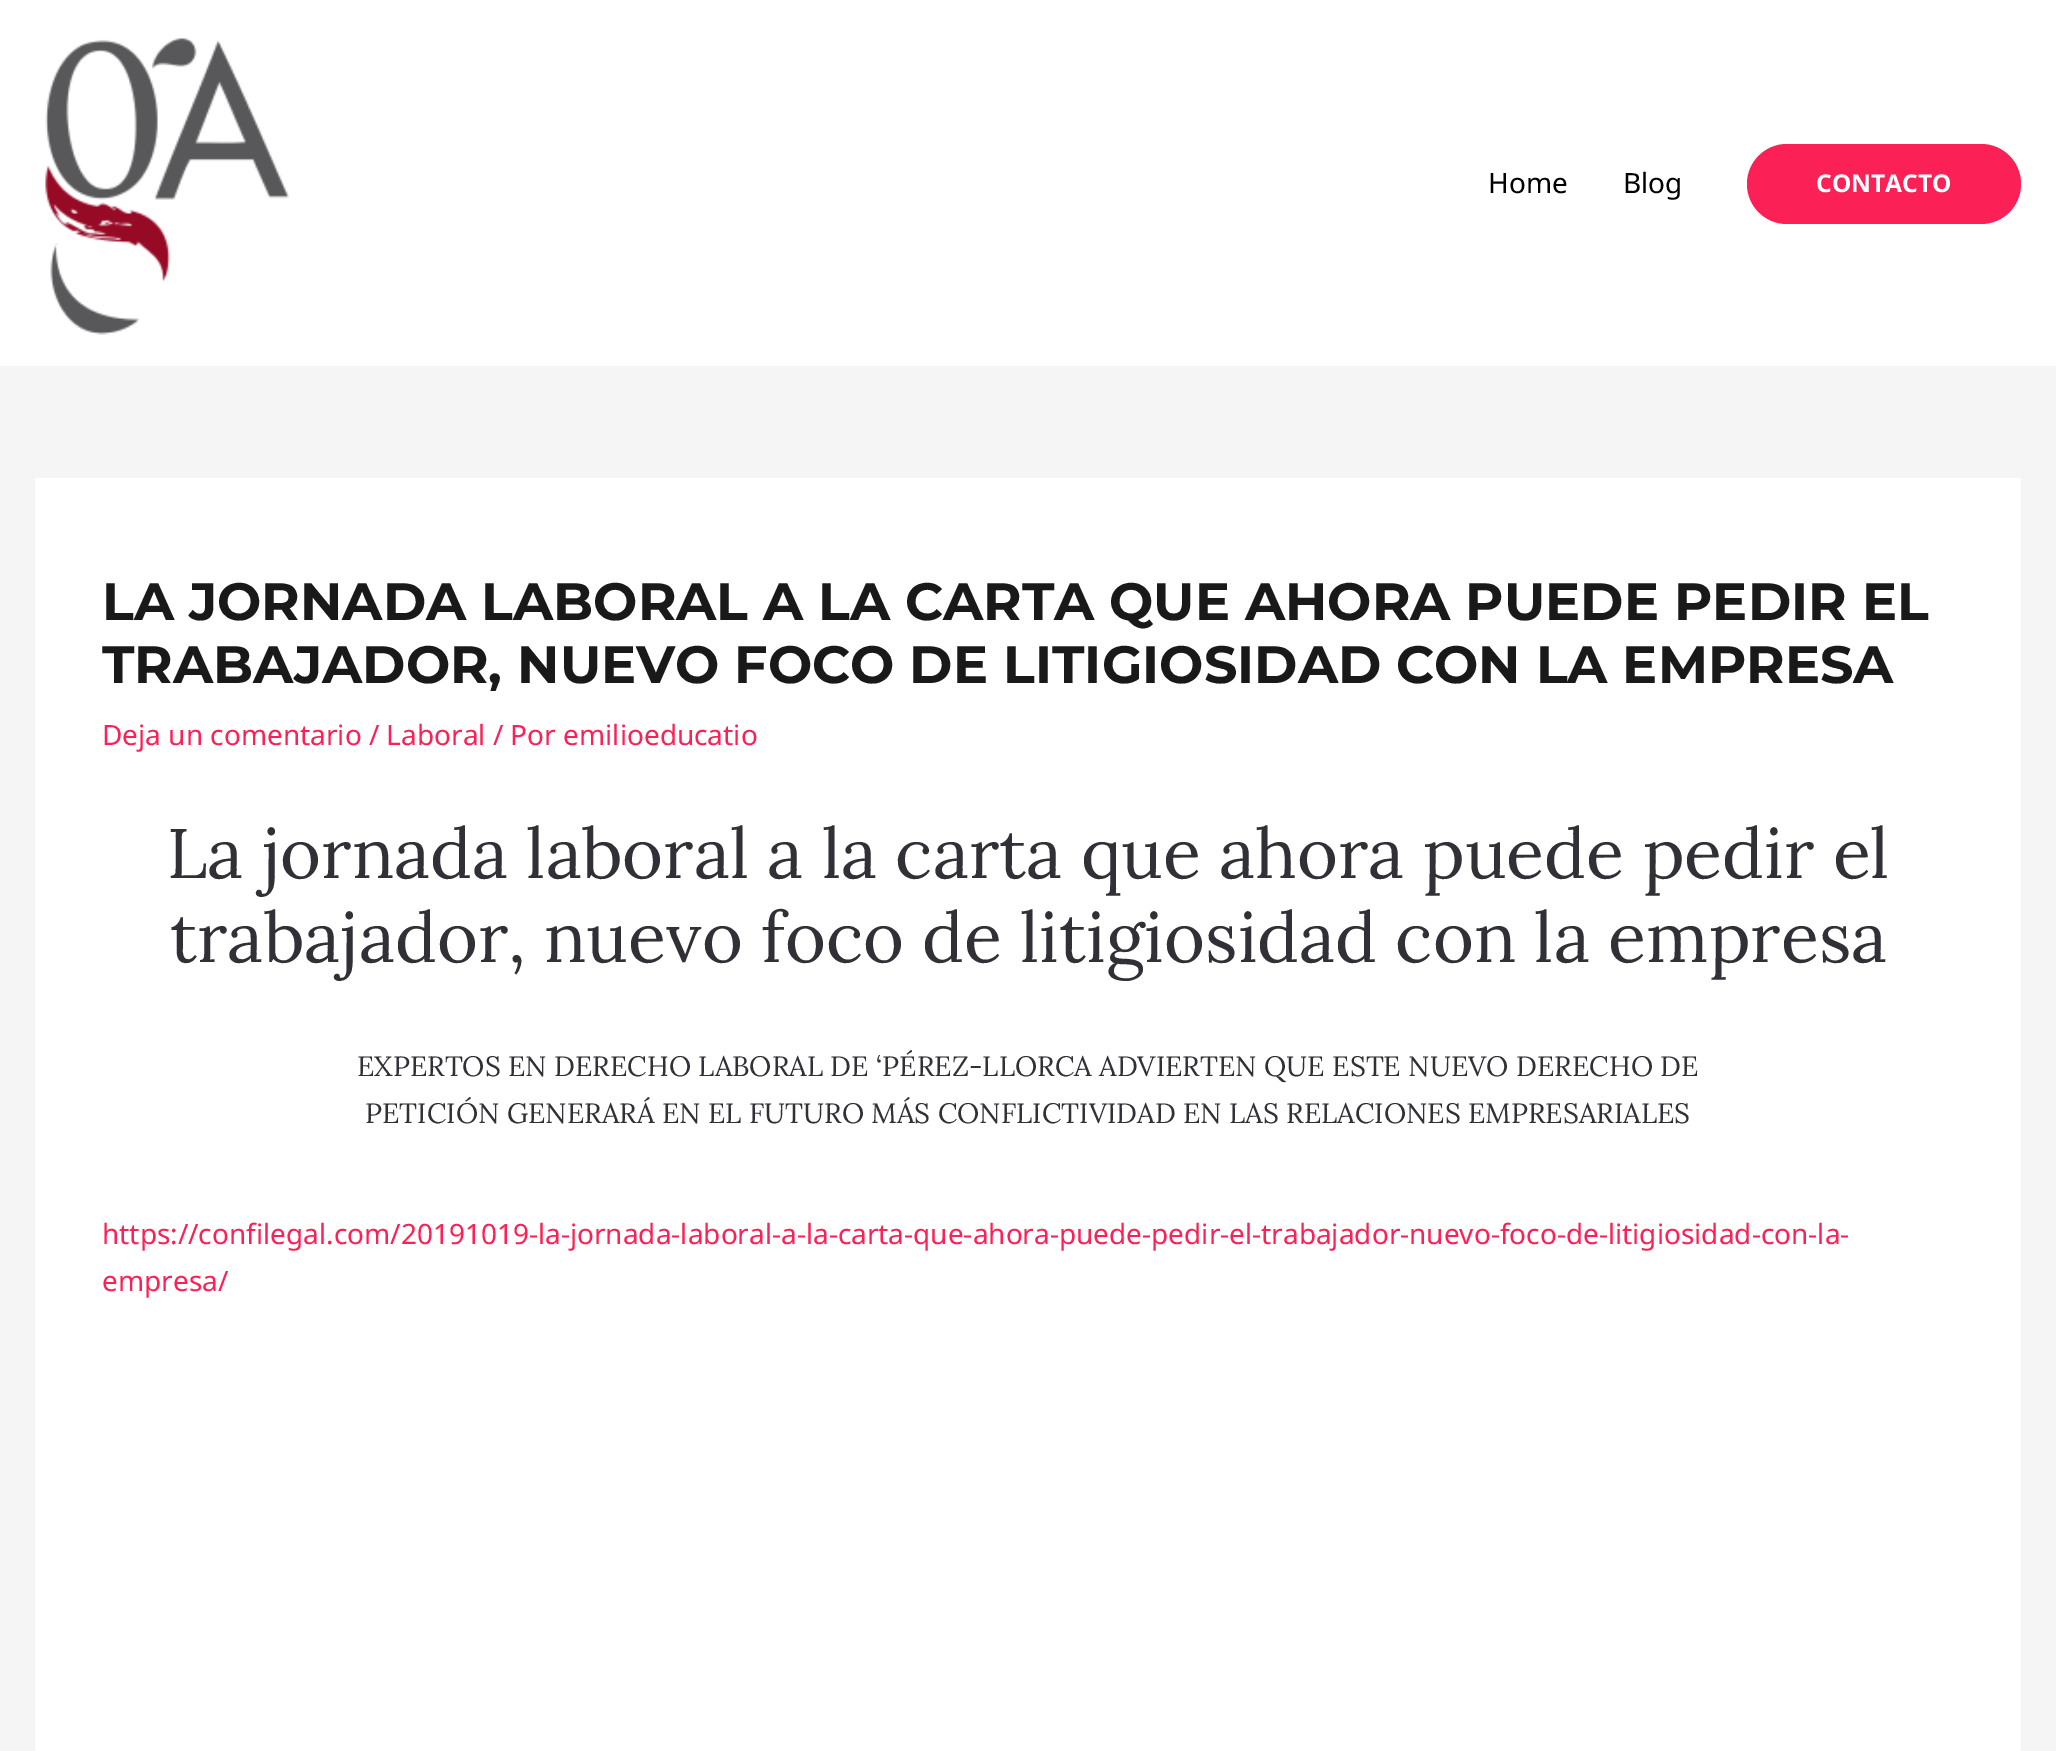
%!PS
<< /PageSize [2056 1751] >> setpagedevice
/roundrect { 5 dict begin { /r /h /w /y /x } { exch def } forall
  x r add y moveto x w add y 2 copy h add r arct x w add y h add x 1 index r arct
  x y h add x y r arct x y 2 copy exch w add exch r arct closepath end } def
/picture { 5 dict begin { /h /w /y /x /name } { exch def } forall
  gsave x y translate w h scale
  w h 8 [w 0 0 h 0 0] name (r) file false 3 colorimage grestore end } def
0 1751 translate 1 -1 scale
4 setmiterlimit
0.961 setgray
0 0 2056 1751 rectfill
1 setgray
0 0 2056 366 rectfill
(img1.rgb) 45 38 245 297 picture
/NotoSans-Regular [28 0 0 -28 0 0] selectfont
0 setgray
1488 193 moveto (Home) show
1623 193 moveto (Blog) show
0.984 0.125 0.337 setrgbcolor
1747 144 274 80 40 roundrect fill
/NotoSans-Bold [24.5 0 0 -24.5 0 0] selectfont
1 setgray
1816 192 moveto (CONTACTO) show
35 478 1986 1273 rectfill
/Montserrat-Thin [52.5 0 0 -52.5 0 0] selectfont
0.098 setgray
102 620 moveto (LA JORNADA LABORAL A LA CARTA QUE AHORA PUEDE PEDIR EL) show
102 683 moveto (TRABAJADOR, NUEVO FOCO DE LITIGIOSIDAD CON LA EMPRESA) show
/NotoSans-Regular [28 0 0 -28 0 0] selectfont
0.984 0.125 0.337 setrgbcolor
102 745 moveto (Deja un comentario / Laboral / Por emilioeducatio) show
/Lora-Regular [70 0 0 -70 0 0] selectfont
0.188 0.188 0.212 setrgbcolor
167 878 moveto (La jornada laboral a la carta que ahora puede pedir el) show
170 962 moveto (trabajador, nuevo foco de litigiosidad con la empresa) show
/Lora-Regular [28 0 0 -28 0 0] selectfont
357 1076 moveto (EXPERTOS EN DERECHO LABORAL DE ‘PÉREZ-LLORCA ADVIERTEN QUE ESTE NUEVO DERECHO DE) show
365 1123 moveto (PETICIÓN GENERARÁ EN EL FUTURO MÁS CONFLICTIVIDAD EN LAS RELACIONES EMPRESARIALES) show
/NotoSans-Regular [28 0 0 -28 0 0] selectfont
0.984 0.125 0.337 setrgbcolor
102 1244 moveto (https://confilegal.com/20191019-la-jornada-laboral-a-la-carta-que-ahora-puede-pedir-el-trabajador-nuevo-foco-de-litigiosidad-con-la-) show
102 1291 moveto (empresa/) show
showpage
